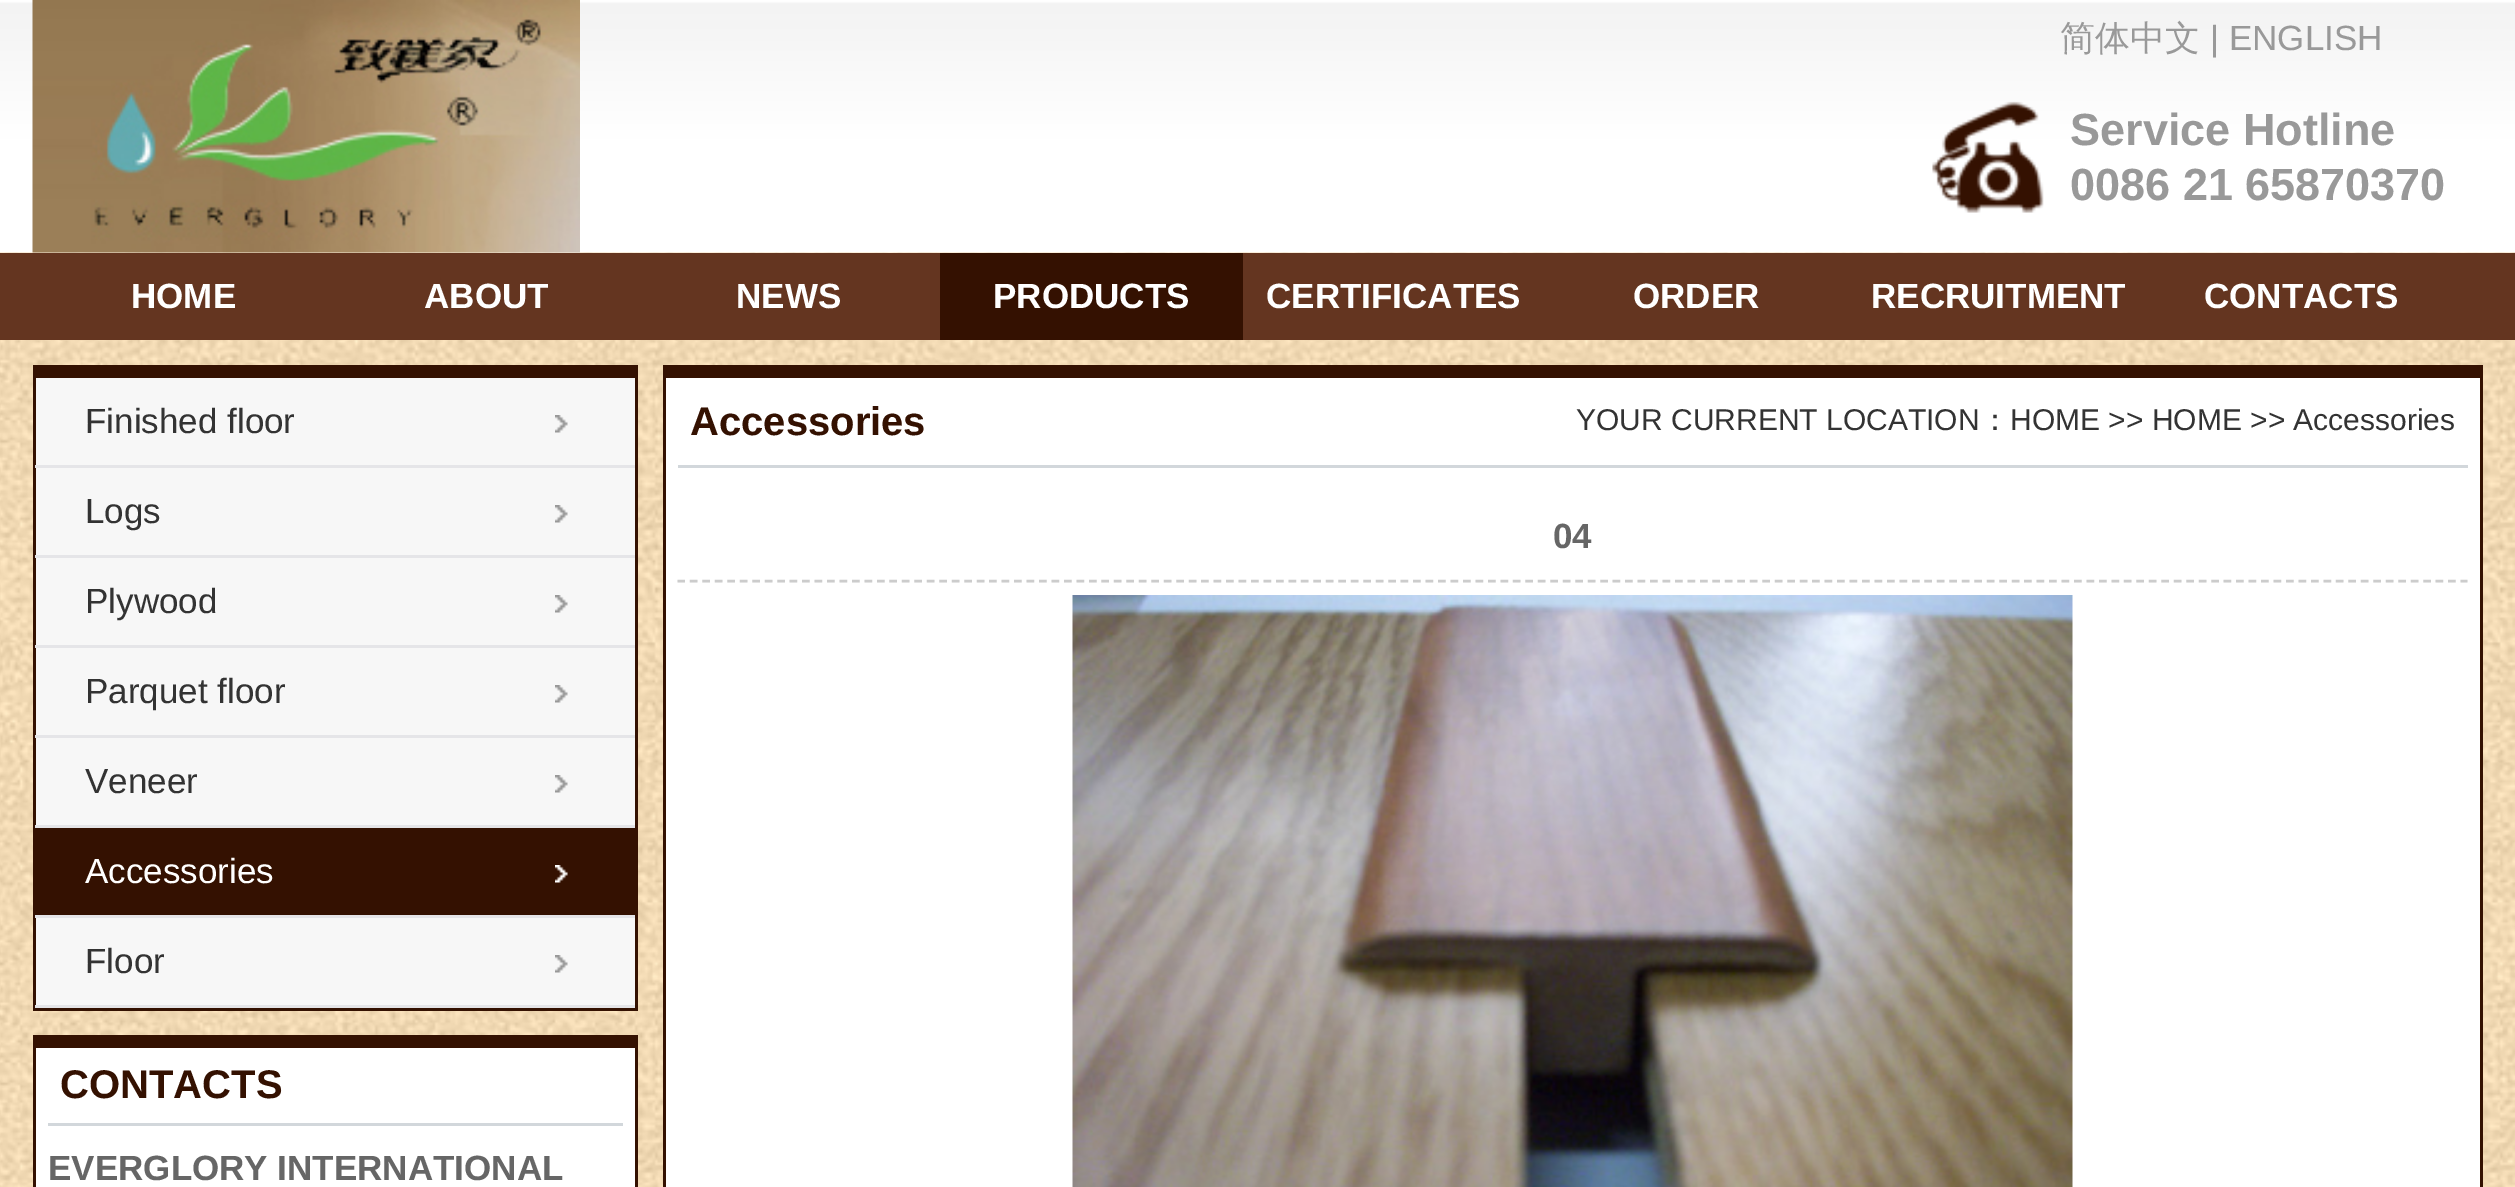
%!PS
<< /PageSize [2515 1187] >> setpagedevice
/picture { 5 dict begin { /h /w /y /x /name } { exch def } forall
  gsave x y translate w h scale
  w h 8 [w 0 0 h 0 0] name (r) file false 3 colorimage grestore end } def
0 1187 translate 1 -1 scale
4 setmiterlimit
1 setgray
0 0 2515 1187 rectfill
(img1.rgb) 0 252 2515 935 picture
(img2.rgb) 0 0 2515 253 picture
(img3.rgb) 32 0 548 253 picture
/WenQuanYiZenHei-Medium [35 0 0 -35 0 0] selectfont
0.6 setgray
2060 50 moveto (简体中文) show
/LiberationSans-Regular [35 0 0 -35 0 0] selectfont
2210 50 moveto (| ENGLISH) show
(img4.rgb) 1932 101 112 112 picture
/LiberationSans-Bold [45 0 0 -45 0 0] selectfont
2070 145 moveto (Service Hotline) show
2070 200 moveto (0086 21 65870370) show
0.392 0.208 0.125 setrgbcolor
0 253 2515 87 rectfill
/LiberationSans-Bold [35 0 0 -35 0 0] selectfont
1 setgray
131 308 moveto (HOME) show
424 308 moveto (ABOUT) show
736 308 moveto (NEWS) show
0.204 0.067 0.004 setrgbcolor
940 253 303 87 rectfill
1 setgray
993 308 moveto (PRODUCTS) show
1266 308 moveto (CERTIFICATES) show
1633 308 moveto (ORDER) show
1871 308 moveto (RECRUITMENT) show
2204 308 moveto (CONTACTS) show
0.969 setgray
36 378 599 627 rectfill
0.204 0.067 0.004 setrgbcolor
36 365 599 13 rectfill
635 365 3 645 rectfill
33 1008 605 3 rectfill
33 365 3 645 rectfill
0.898 0.898 0.91 setrgbcolor
35 465 600 3 rectfill
(img5.rgb) 555 415 13 18 picture
/LiberationSans-Regular [35 0 0 -35 0 0] selectfont
0.2 setgray
85 433 moveto (Finished floor) show
0.898 0.898 0.91 setrgbcolor
35 555 600 3 rectfill
(img5.rgb) 555 505 13 18 picture
0.2 setgray
85 523 moveto (Logs) show
0.898 0.898 0.91 setrgbcolor
35 645 600 3 rectfill
(img5.rgb) 555 595 13 18 picture
0.2 setgray
85 613 moveto (Plywood) show
0.898 0.898 0.91 setrgbcolor
35 735 600 3 rectfill
(img5.rgb) 555 685 13 18 picture
0.2 setgray
85 703 moveto (Parquet floor) show
0.898 0.898 0.91 setrgbcolor
35 825 600 3 rectfill
(img6.rgb) 555 775 13 18 picture
0.2 setgray
85 793 moveto (Veneer) show
0.898 0.898 0.91 setrgbcolor
35 915 600 3 rectfill
0.204 0.067 0.004 setrgbcolor
36 828 599 87 rectfill
(img7.rgb) 555 865 13 18 picture
1 setgray
85 883 moveto (Accessories) show
0.898 0.898 0.91 setrgbcolor
35 1005 600 3 rectfill
(img5.rgb) 555 955 13 18 picture
0.2 setgray
85 973 moveto (Floor) show
1 setgray
36 1048 599 139 rectfill
0.204 0.067 0.004 setrgbcolor
36 1035 599 13 rectfill
635 1035 3 152 rectfill
33 1035 3 152 rectfill
0.824 0.843 0.859 setrgbcolor
48 1123 575 3 rectfill
/LiberationSans-Bold [40 0 0 -40 0 0] selectfont
0.204 0.067 0.004 setrgbcolor
60 1098 moveto (CONTACTS) show
/LiberationSans-Bold [35 0 0 -35 0 0] selectfont
0.4 setgray
48 1180 moveto (EVERGLORY INTERNATIONAL) show
1 setgray
666 378 1814 809 rectfill
0.204 0.067 0.004 setrgbcolor
666 365 1814 13 rectfill
2480 365 3 822 rectfill
663 365 3 822 rectfill
0.824 0.843 0.859 setrgbcolor
678 465 1790 3 rectfill
/LiberationSans-Bold [40 0 0 -40 0 0] selectfont
0.204 0.067 0.004 setrgbcolor
690 435 moveto (Accessories) show
/LiberationSans-Regular [30 0 0 -30 0 0] selectfont
0.2 setgray
1576 430 moveto (YOUR CURRENT LOCATION) show
/WenQuanYiZenHei-Medium [30 0 0 -30 0 0] selectfont
1980 430 moveto (：) show
/LiberationSans-Regular [30 0 0 -30 0 0] selectfont
2010 430 moveto (HOME >> HOME >> Accessories) show
0.8 setgray
2.5 setlinewidth
[7.5 4.97] 0 setdash
newpath 677.5 581 moveto 2467.5 581 lineto stroke
/LiberationSans-Bold [35 0 0 -35 0 0] selectfont
0.4 setgray
1553 548 moveto (04) show
(img8.rgb) 1072 595 1001 592 picture
showpage
